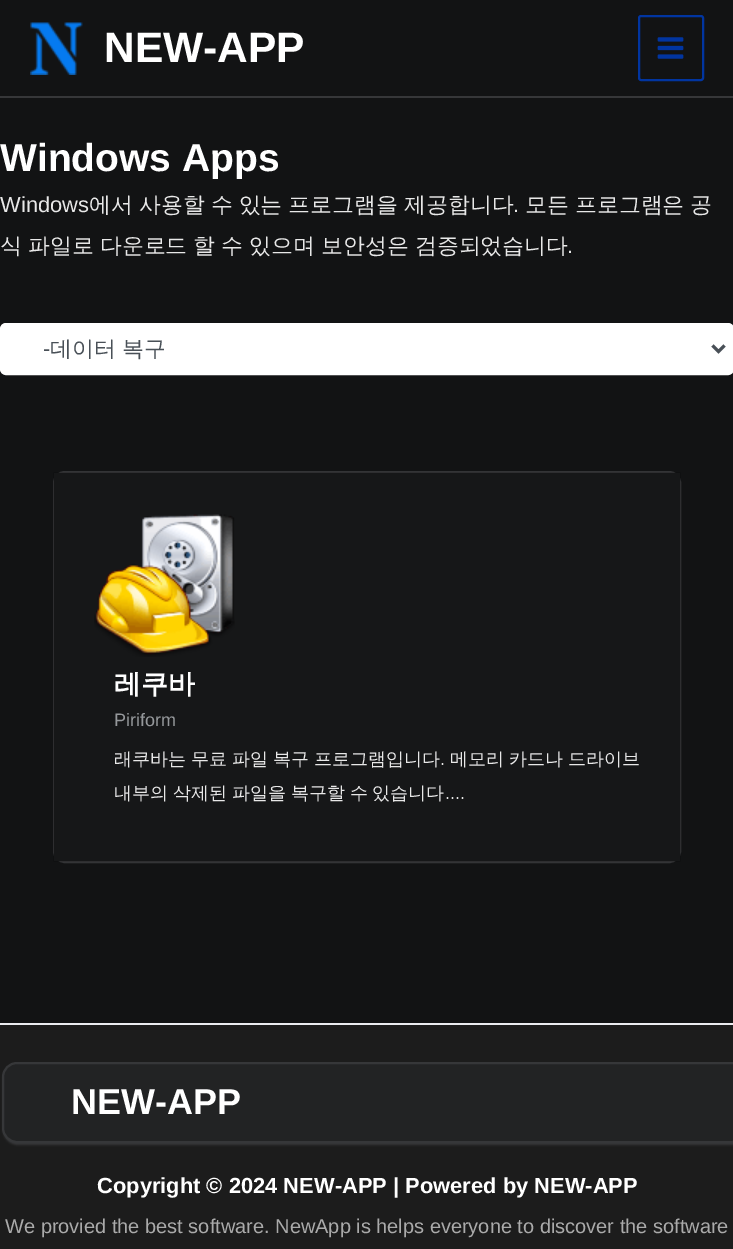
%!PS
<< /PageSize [733 1249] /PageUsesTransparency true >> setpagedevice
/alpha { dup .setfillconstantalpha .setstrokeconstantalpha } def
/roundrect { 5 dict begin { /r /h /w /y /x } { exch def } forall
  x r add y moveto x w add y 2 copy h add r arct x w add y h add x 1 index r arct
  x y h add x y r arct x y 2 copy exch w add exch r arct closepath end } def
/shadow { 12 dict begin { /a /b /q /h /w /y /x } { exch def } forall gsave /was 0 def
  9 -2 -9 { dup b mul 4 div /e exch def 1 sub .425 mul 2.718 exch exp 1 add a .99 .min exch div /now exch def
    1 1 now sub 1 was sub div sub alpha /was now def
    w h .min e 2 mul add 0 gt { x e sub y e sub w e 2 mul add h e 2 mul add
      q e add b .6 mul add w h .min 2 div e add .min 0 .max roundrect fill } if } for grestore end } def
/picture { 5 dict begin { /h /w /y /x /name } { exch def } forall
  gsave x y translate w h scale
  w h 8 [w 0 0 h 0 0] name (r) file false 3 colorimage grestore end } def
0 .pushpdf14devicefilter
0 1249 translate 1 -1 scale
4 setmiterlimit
0.071 0.075 0.078 setrgbcolor
0 0 733 1249 rectfill
0.212 0.216 0.224 setrgbcolor
0 96 733 2 rectfill
(img1.rgb) 30 22 53 53 picture
/LiberationSans-Bold [42.5 0 0 -42.5 0 0] selectfont
1 setgray
104 62 moveto (NEW-APP) show
0.004 0.208 0.631 setrgbcolor
2 setlinewidth
639 16 64 64 2 roundrect stroke
(img2.rgb) 657 37 27 22 picture
/LiberationSans-Bold [39 0 0 -39 0 0] selectfont
1 setgray
0 171 moveto (Windows Apps) show
/LiberationSans-Regular [21.9 0 0 -21.9 0 0] selectfont
0.91 setgray
0 212 moveto (Windows) show
/WenQuanYiZenHei-Medium [21.9 0 0 -21.9 0 0] selectfont
89 212 moveto -0.5 0 32 (에서 사용할 수 있는 프로그램을 제공합니다) widthshow
/LiberationSans-Regular [21.9 0 0 -21.9 0 0] selectfont
513 212 moveto (.) show
/WenQuanYiZenHei-Medium [21.9 0 0 -21.9 0 0] selectfont
525 212 moveto -0.5 0 32 (모든 프로그램은 공) widthshow
0 253 moveto -0.5 0 32 (식 파일로 다운로드 할 수 있으며 보안성은 검증되었습니다) widthshow
/LiberationSans-Regular [21.9 0 0 -21.9 0 0] selectfont
567 253 moveto (.) show
1 setgray
1.5 324.5 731 49 4.5 roundrect gsave fill grestore
3 setlinewidth
stroke
0.286 0.314 0.341 setrgbcolor
newpath 712.5 345.5 moveto 718.5 351.5 lineto 724.5 345.5 lineto stroke
43 356 moveto (-) show
/WenQuanYiZenHei-Medium [21.9 0 0 -21.9 0 0] selectfont
50 356 moveto -0.5 0 32 (데이터 복구) widthshow
0.212 0.216 0.224 setrgbcolor
2 setlinewidth
54 472 626 390 11 roundrect stroke
0 setgray
54 473 626 388 0 1 0.5 shadow
0.086 0.09 0.094 setrgbcolor
54 473 626 388 rectfill
(img3.rgb) 94 514 141 143 picture
/WenQuanYiZenHei-Bold [27 0 0 -27 0 0] selectfont
1 setgray
114 693 moveto (레쿠바) show
/LiberationSans-Regular [18 0 0 -18 0 0] selectfont
0.584 0.596 0.608 setrgbcolor
114 726 moveto (Piriform) show
/WenQuanYiZenHei-Medium [18 0 0 -18 0 0] selectfont
0.91 setgray
114 765 moveto -0.5 0 32 (래쿠바는 무료 파일 복구 프로그램입니다) widthshow
/LiberationSans-Regular [18 0 0 -18 0 0] selectfont
440 765 moveto (.) show
/WenQuanYiZenHei-Medium [18 0 0 -18 0 0] selectfont
450 765 moveto -0.5 0 32 (메모리 카드나 드라이브) widthshow
114 799 moveto -0.5 0 32 (내부의 삭제된 파일을 복구할 수 있습니다) widthshow
/LiberationSans-Regular [18 0 0 -18 0 0] selectfont
445 799 moveto (....) show
0.11 setgray
0 1025 733 224 rectfill
0.922 0.925 0.941 setrgbcolor
0 1023 733 2 rectfill
0.212 0.216 0.224 setrgbcolor
3 1064 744 81 15 1 1 shadow
0.133 0.137 0.141 setrgbcolor
3 1063 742 79 14 roundrect gsave fill grestore
0.212 0.216 0.224 setrgbcolor
stroke
/LiberationSans-Bold [36 0 0 -36 0 0] selectfont
1 setgray
71 1114 moveto (NEW-APP) show
/LiberationSans-Bold [21.9 0 0 -21.9 0 0] selectfont
97 1193 moveto (Copyright © 2024 NEW-APP | Powered by NEW-APP) show
/LiberationSans-Regular [20 0 0 -20 0 0] selectfont
0.667 setgray
5 1233 moveto (We provied the best software. NewApp is helps everyone to discover the software) show
.poppdf14devicefilter showpage
